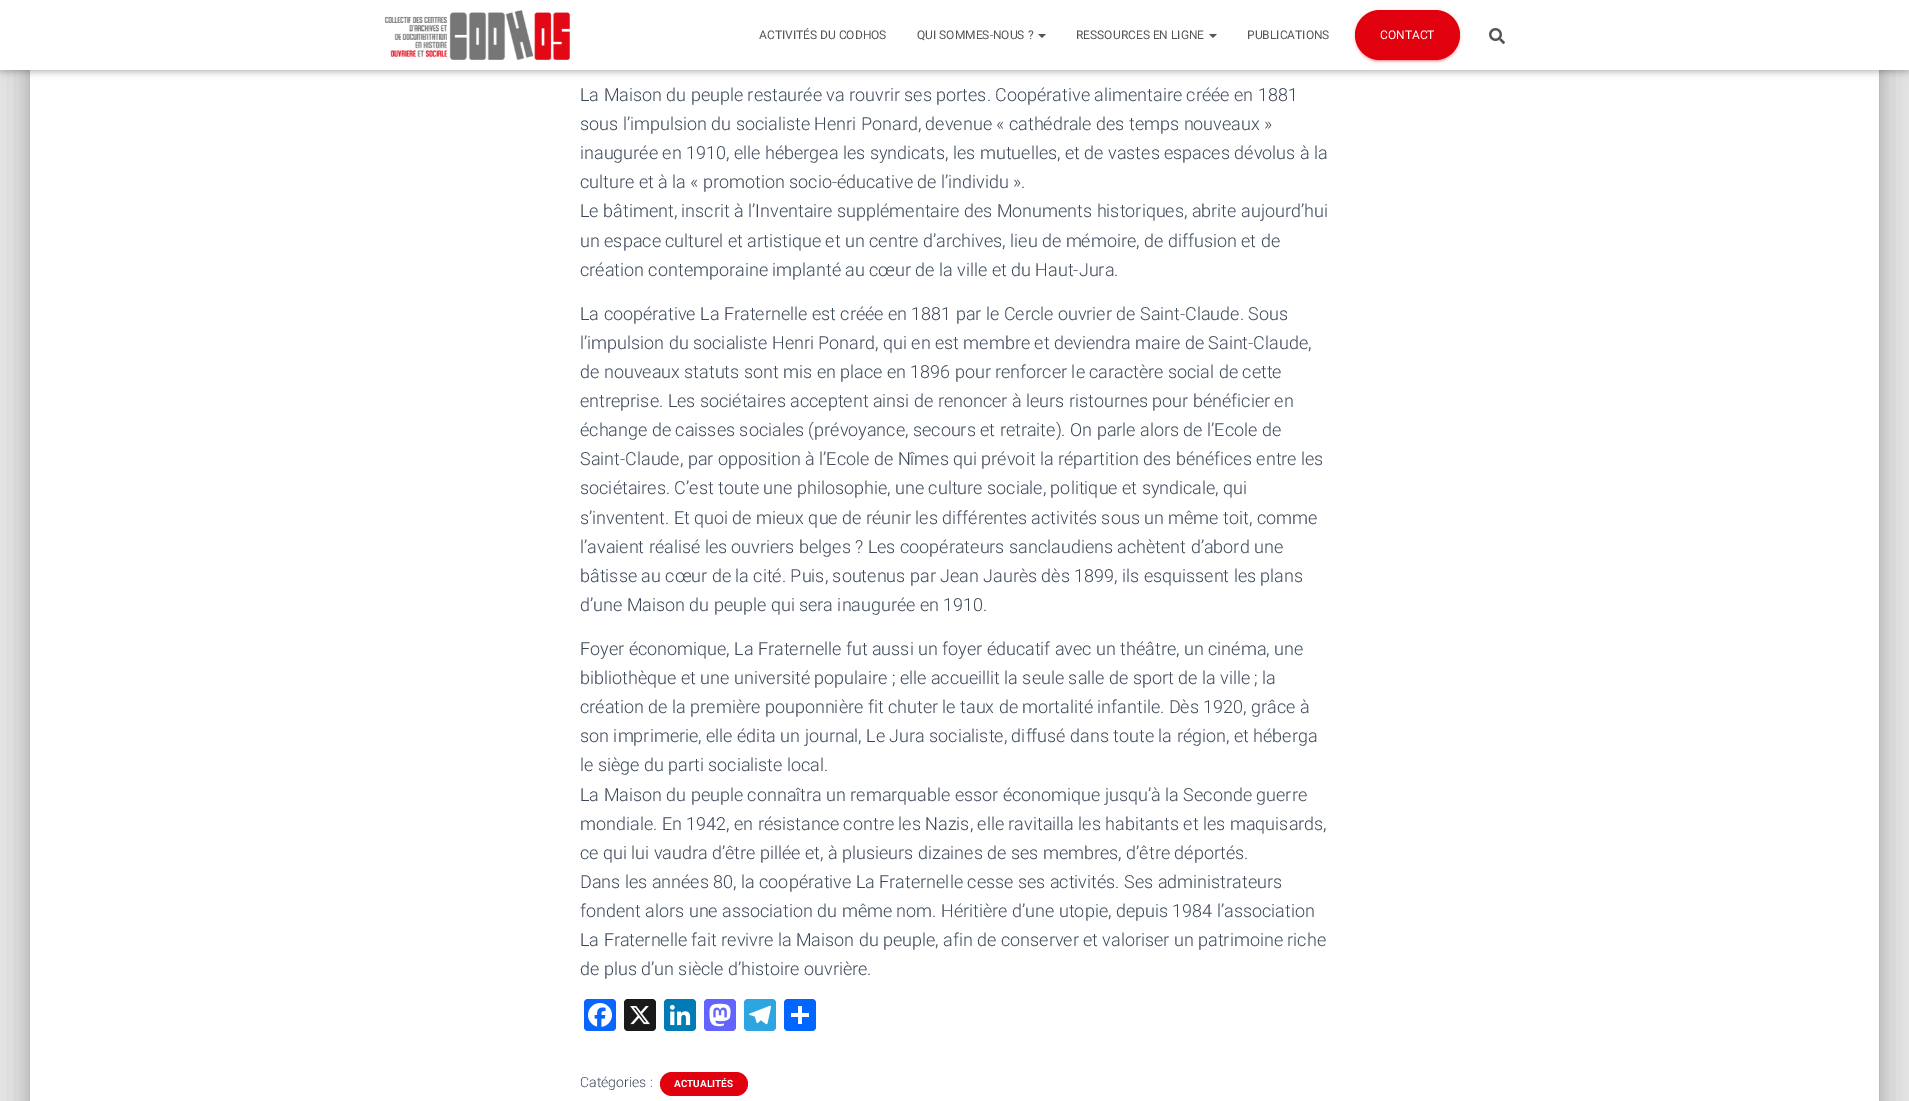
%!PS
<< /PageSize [1909 1101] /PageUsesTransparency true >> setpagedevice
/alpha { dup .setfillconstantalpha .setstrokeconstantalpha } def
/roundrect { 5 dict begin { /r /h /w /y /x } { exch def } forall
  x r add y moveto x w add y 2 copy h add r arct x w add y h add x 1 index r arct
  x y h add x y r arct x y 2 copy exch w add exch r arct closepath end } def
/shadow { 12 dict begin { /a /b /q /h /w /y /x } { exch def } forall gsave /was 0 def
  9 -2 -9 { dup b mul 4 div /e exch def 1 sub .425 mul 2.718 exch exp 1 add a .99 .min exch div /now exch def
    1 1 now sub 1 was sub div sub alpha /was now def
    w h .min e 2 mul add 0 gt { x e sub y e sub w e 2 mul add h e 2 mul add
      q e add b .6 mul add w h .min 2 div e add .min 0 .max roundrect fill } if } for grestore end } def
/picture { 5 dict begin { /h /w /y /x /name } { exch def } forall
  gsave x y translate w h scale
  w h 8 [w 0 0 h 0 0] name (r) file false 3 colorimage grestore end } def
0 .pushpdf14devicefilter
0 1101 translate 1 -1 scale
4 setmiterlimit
0.898 setgray
0 0 1909 1101 rectfill
0 setgray
35 -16 1839 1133 1 5 0.2 shadow
25 -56 1859 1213 11 15 0.12 shadow
28 -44 1853 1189 8 12 0.14 shadow
1 setgray
30 70 1849 1031 rectfill
0 setgray
2 6 1905 66 0 2.5 0.1 shadow
0 1 1909 70 0 5 0.12 shadow
6 7 1897 58 0 5 0.42 shadow
1 setgray
0 0 1909 70 rectfill
(img1.rgb) 384 10 186 50 picture
/Roboto-Regular [12 0 0 -12 0 0] selectfont
0.333 setgray
759 39 moveto (ACTIVITÉS DU CODHOS) show
917 39 moveto (QUI SOMMES-NOUS ?) show
newpath 1038 34 moveto 1046 34 lineto 1042 38 lineto closepath fill
1076 39 moveto (RESSOURCES EN LIGNE) show
newpath 1209 34 moveto 1217 34 lineto 1213 38 lineto closepath fill
1247 39 moveto (PUBLICATIONS) show
0.878 0 0.055 setrgbcolor
1355 11 105 50 25 2.5 0.12 shadow
1357 15 101 46 23 0.5 0.2 shadow
1355 12 105 50 25 1 0.14 shadow
1355 10 105 50 25 roundrect fill
1 setgray
1380 39 moveto (CONTACT) show
(img2.rgb) 1489 28 16 16 picture
/Roboto-Light [18 0 0 -18 0 0] selectfont
0.235 0.282 0.345 setrgbcolor
580 101 moveto (La Maison du peuple restaurée va rouvrir ses portes. Coopérative alimentaire créée en 1881) show
580 130 moveto (sous l’impulsion du socialiste Henri Ponard, devenue « cathédrale des temps nouveaux ») show
580 159 moveto (inaugurée en 1910, elle hébergea les syndicats, les mutuelles, et de vastes espaces dévolus à la) show
580 188 moveto (culture et à la « promotion socio-éducative de l’individu ».) show
580 217 moveto (Le bâtiment, inscrit à l’Inventaire supplémentaire des Monuments historiques, abrite aujourd’hui) show
580 247 moveto (un espace culturel et artistique et un centre d’archives, lieu de mémoire, de diffusion et de) show
580 276 moveto (création contemporaine implanté au cœur de la ville et du Haut-Jura.) show
580 320 moveto (La coopérative La Fraternelle est créée en 1881 par le Cercle ouvrier de Saint-Claude. Sous) show
580 349 moveto (l’impulsion du socialiste Henri Ponard, qui en est membre et deviendra maire de Saint-Claude,) show
580 378 moveto (de nouveaux statuts sont mis en place en 1896 pour renforcer le caractère social de cette) show
580 407 moveto (entreprise. Les sociétaires acceptent ainsi de renoncer à leurs ristournes pour bénéficier en) show
580 436 moveto (échange de caisses sociales \(prévoyance, secours et retraite\). On parle alors de l’Ecole de) show
580 465 moveto (Saint-Claude, par opposition à l’Ecole de Nîmes qui prévoit la répartition des bénéfices entre les) show
580 494 moveto (sociétaires. C’est toute une philosophie, une culture sociale, politique et syndicale, qui) show
580 524 moveto (s’inventent. Et quoi de mieux que de réunir les différentes activités sous un même toit, comme) show
580 553 moveto (l’avaient réalisé les ouvriers belges ? Les coopérateurs sanclaudiens achètent d’abord une) show
580 582 moveto (bâtisse au cœur de la cité. Puis, soutenus par Jean Jaurès dès 1899, ils esquissent les plans) show
580 611 moveto (d’une Maison du peuple qui sera inaugurée en 1910.) show
580 655 moveto (Foyer économique, La Fraternelle fut aussi un foyer éducatif avec un théâtre, un cinéma, une) show
580 684 moveto (bibliothèque et une université populaire ; elle accueillit la seule salle de sport de la ville ; la) show
580 713 moveto (création de la première pouponnière fit chuter le taux de mortalité infantile. Dès 1920, grâce à) show
580 742 moveto (son imprimerie, elle édita un journal, Le Jura socialiste, diffusé dans toute la région, et héberga) show
580 771 moveto (le siège du parti socialiste local.) show
580 801 moveto (La Maison du peuple connaîtra un remarquable essor économique jusqu’à la Seconde guerre) show
580 830 moveto (mondiale. En 1942, en résistance contre les Nazis, elle ravitailla les habitants et les maquisards,) show
580 859 moveto (ce qui lui vaudra d’être pillée et, à plusieurs dizaines de ses membres, d’être déportés.) show
580 888 moveto (Dans les années 80, la coopérative La Fraternelle cesse ses activités. Ses administrateurs) show
580 917 moveto (fondent alors une association du même nom. Héritière d’une utopie, depuis 1984 l’association) show
580 946 moveto (La Fraternelle fait revivre la Maison du peuple, afin de conserver et valoriser un patrimoine riche) show
580 975 moveto (de plus d’un siècle d’histoire ouvrière.) show
0.031 0.4 1 setrgbcolor
584 999 32 32 4 roundrect fill
(img3.rgb) 588 1003 24 24 picture
0.102 setgray
624 999 32 32 4 roundrect fill
(img4.rgb) 630 1006 20 19 picture
0 0.482 0.71 setrgbcolor
664 999 32 32 4 roundrect fill
(img5.rgb) 669 1004 22 22 picture
0.388 0.392 1 setrgbcolor
704 999 32 32 4 roundrect fill
(img6.rgb) 709 1003 22 24 picture
0.173 0.647 0.878 setrgbcolor
744 999 32 32 4 roundrect fill
(img7.rgb) 749 1005 22 20 picture
0.004 0.4 1 setrgbcolor
784 999 32 32 4 roundrect fill
1 setgray
798 1006 4 18 rectfill
791 1013 18 4 rectfill
/Roboto-Light [14 0 0 -14 0 0] selectfont
0.235 0.282 0.345 setrgbcolor
580 1087 moveto (Catégories :) show
0.878 0 0.055 setrgbcolor
660 1072 88 24 12 roundrect fill
/Roboto-Bold [10 0 0 -10 0 0] selectfont
1 setgray
674 1087 moveto (ACTUALITÉS) show
.poppdf14devicefilter showpage
